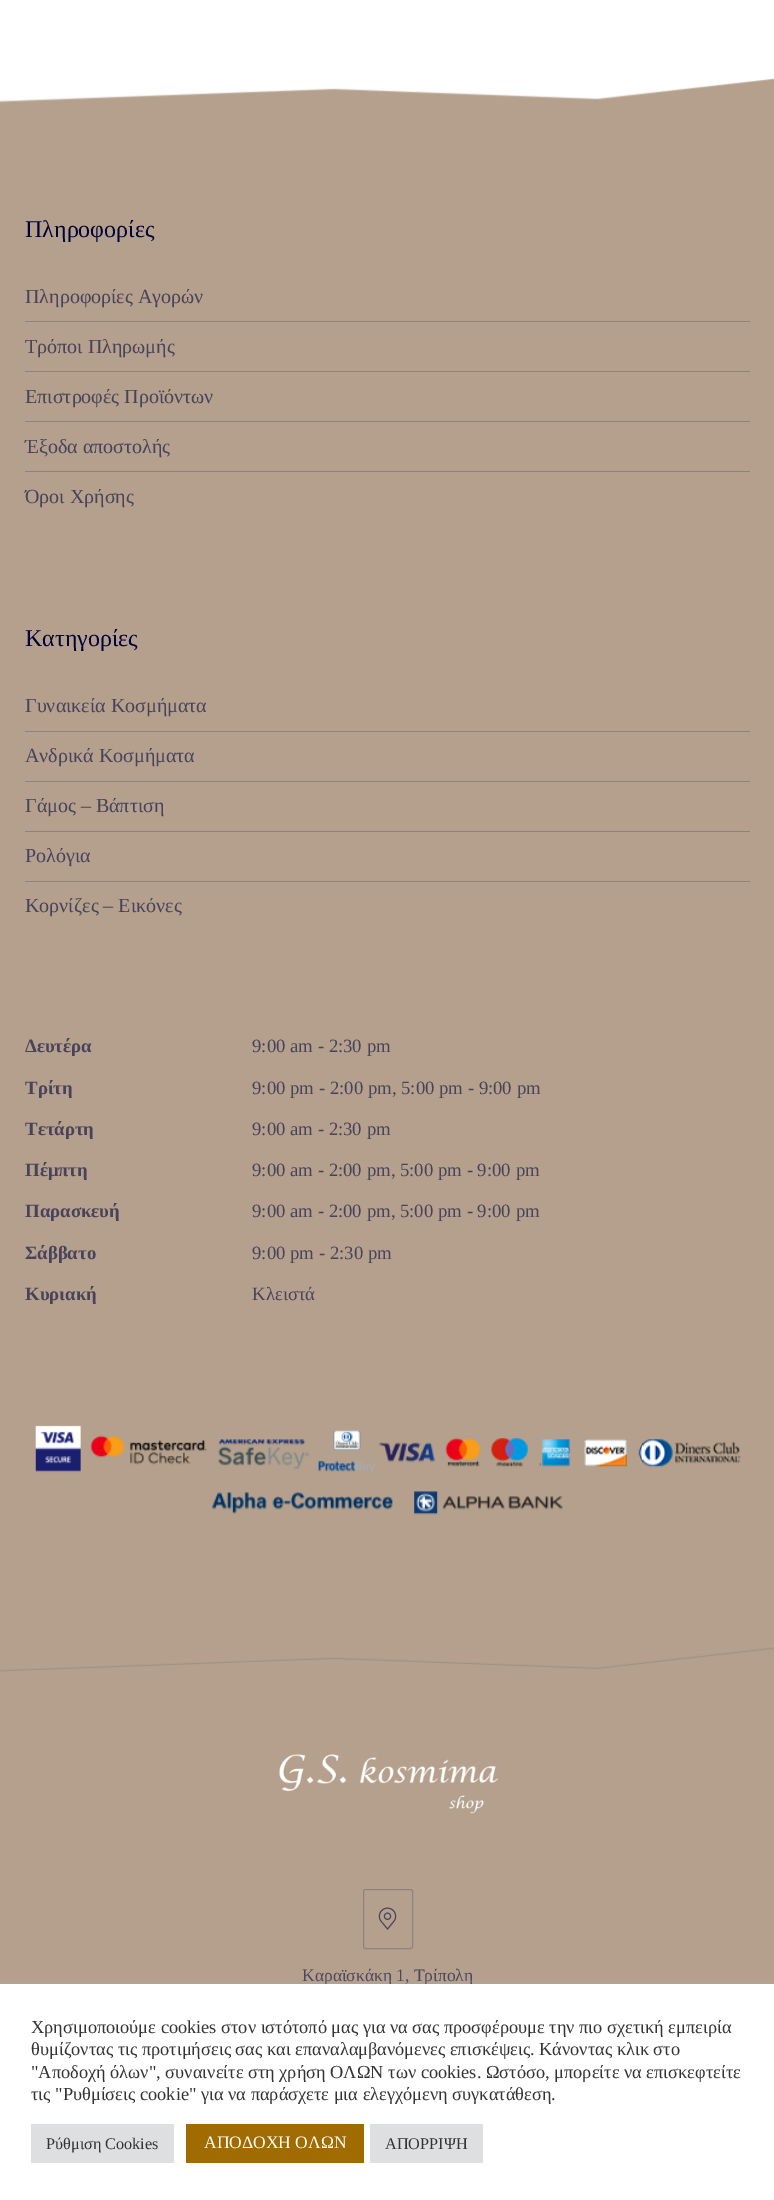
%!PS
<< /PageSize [774 2200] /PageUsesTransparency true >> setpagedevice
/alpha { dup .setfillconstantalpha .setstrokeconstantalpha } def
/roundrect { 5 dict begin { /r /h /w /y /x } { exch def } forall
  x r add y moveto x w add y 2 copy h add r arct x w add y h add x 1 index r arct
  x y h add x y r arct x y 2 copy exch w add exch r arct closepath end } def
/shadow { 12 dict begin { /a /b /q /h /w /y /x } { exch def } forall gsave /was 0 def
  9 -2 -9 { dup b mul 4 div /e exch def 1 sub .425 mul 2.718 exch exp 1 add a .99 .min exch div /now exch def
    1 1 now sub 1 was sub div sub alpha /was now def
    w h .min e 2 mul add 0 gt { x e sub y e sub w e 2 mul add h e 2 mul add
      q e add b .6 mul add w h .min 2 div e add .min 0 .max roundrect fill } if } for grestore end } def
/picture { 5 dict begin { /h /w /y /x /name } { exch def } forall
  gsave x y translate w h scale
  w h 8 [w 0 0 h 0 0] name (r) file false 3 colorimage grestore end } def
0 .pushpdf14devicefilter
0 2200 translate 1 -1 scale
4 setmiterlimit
1 setgray
0 0 774 2200 rectfill
0.706 0.627 0.549 setrgbcolor
0 111 774 1873 rectfill
(img1.rgb) 0 78 774 33 picture
/Tinos-Regular [24 0 0 -24 0 0] selectfont
0 0.012 0.227 setrgbcolor
25 237 moveto (Πληροφορίες) show
0.565 0.506 0.486 setrgbcolor
25 321 725 1 rectfill
/Tinos-Regular [20 0 0 -20 0 0] selectfont
0.282 0.259 0.357 setrgbcolor
25 303 moveto (Πληροφορίες Αγορών) show
0.565 0.506 0.486 setrgbcolor
25 371 725 1 rectfill
0.282 0.259 0.357 setrgbcolor
25 353 moveto (Τρόποι Πληρωμής) show
0.565 0.506 0.486 setrgbcolor
25 421 725 1 rectfill
0.282 0.259 0.357 setrgbcolor
25 403 moveto (Επιστροφές Προϊόντων) show
0.565 0.506 0.486 setrgbcolor
25 471 725 1 rectfill
0.282 0.259 0.357 setrgbcolor
25 453 moveto (Έξοδα αποστολής) show
25 503 moveto (Όροι Χρήσης) show
/Tinos-Regular [24 0 0 -24 0 0] selectfont
0 0.012 0.227 setrgbcolor
25 646 moveto (Κατηγορίες) show
0.565 0.506 0.486 setrgbcolor
25 731 725 1 rectfill
/Tinos-Regular [20 0 0 -20 0 0] selectfont
0.282 0.259 0.357 setrgbcolor
25 712 moveto (Γυναικεία Κοσμήματα) show
0.565 0.506 0.486 setrgbcolor
25 781 725 1 rectfill
0.282 0.259 0.357 setrgbcolor
25 762 moveto (Ανδρικά Κοσμήματα) show
0.565 0.506 0.486 setrgbcolor
25 831 725 1 rectfill
0.282 0.259 0.357 setrgbcolor
25 812 moveto (Γάμος – Βάπτιση) show
0.565 0.506 0.486 setrgbcolor
25 881 725 1 rectfill
0.282 0.259 0.357 setrgbcolor
25 862 moveto (Ρολόγια) show
25 912 moveto (Κορνίζες – Εικόνες) show
/Tinos-Bold [18.75 0 0 -18.75 0 0] selectfont
25 1052 moveto (Δευτέρα) show
/Tinos-Regular [18.75 0 0 -18.75 0 0] selectfont
252 1052 moveto (9:00 am - 2:30 pm) show
/Tinos-Bold [18.75 0 0 -18.75 0 0] selectfont
25 1094 moveto (Τρίτη) show
/Tinos-Regular [18.75 0 0 -18.75 0 0] selectfont
252 1094 moveto (9:00 pm - 2:00 pm, 5:00 pm - 9:00 pm) show
/Tinos-Bold [18.75 0 0 -18.75 0 0] selectfont
25 1135 moveto (Τετάρτη) show
/Tinos-Regular [18.75 0 0 -18.75 0 0] selectfont
252 1135 moveto (9:00 am - 2:30 pm) show
/Tinos-Bold [18.75 0 0 -18.75 0 0] selectfont
25 1176 moveto (Πέμπτη) show
/Tinos-Regular [18.75 0 0 -18.75 0 0] selectfont
252 1176 moveto (9:00 am - 2:00 pm, 5:00 pm - 9:00 pm) show
/Tinos-Bold [18.75 0 0 -18.75 0 0] selectfont
25 1217 moveto (Παρασκευή) show
/Tinos-Regular [18.75 0 0 -18.75 0 0] selectfont
252 1217 moveto (9:00 am - 2:00 pm, 5:00 pm - 9:00 pm) show
/Tinos-Bold [18.75 0 0 -18.75 0 0] selectfont
25 1259 moveto (Σάββατο) show
/Tinos-Regular [18.75 0 0 -18.75 0 0] selectfont
252 1259 moveto (9:00 pm - 2:30 pm) show
/Tinos-Bold [18.75 0 0 -18.75 0 0] selectfont
25 1300 moveto (Κυριακή) show
/Tinos-Regular [18.75 0 0 -18.75 0 0] selectfont
252 1300 moveto (Κλειστά) show
(img2.rgb) 35 1425 706 90 picture
(img3.rgb) 0 1647 774 25 picture
(img4.rgb) 279 1754 219 60 picture
(img5.rgb) 378 1907 19 23 picture
0.565 0.506 0.486 setrgbcolor
363.5 1889.5 49 59 2 roundrect stroke
/Tinos-Regular [17.5 0 0 -17.5 0 0] selectfont
0.282 0.259 0.357 setrgbcolor
302 1981 moveto (Καραϊσκάκη 1, Τρίπολη) show
0.675 0.671 0.671 setrgbcolor
0 1983 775 216 0 6 0.3 shadow
1 setgray
0 1984 774 216 rectfill
/Tinos-Regular [18.35 0 0 -18.35 0 0] selectfont
0.2 setgray
31 2033 moveto (Χρησιμοποιούμε cookies στον ιστότοπό μας για να σας προσφέρουμε την πιο σχετική εμπειρία) show
31 2055 moveto (θυμίζοντας τις προτιμήσεις σας και επαναλαμβανόμενες επισκέψεις. Κάνοντας κλικ στο) show
31 2078 moveto ("Αποδοχή όλων", συναινείτε στη χρήση ΟΛΩΝ των cookies. Ωστόσο, μπορείτε να επισκεφτείτε) show
31 2100 moveto (τις "Ρυθμίσεις cookie" για να παράσχετε μια ελεγχόμενη συγκατάθεση.) show
0.871 0.875 0.878 setrgbcolor
31 2124 143 39 rectfill
/Tinos-Regular [16.25 0 0 -16.25 0 0] selectfont
0.2 setgray
46 2149 moveto (Ρύθμιση Cookies) show
0.627 0.42 0 setrgbcolor
186 2124 178 39 rectfill
/Tinos-Regular [17.5 0 0 -17.5 0 0] selectfont
1 setgray
204 2148 moveto (ΑΠΟΔΟΧΗ ΟΛΩΝ) show
0.871 0.875 0.878 setrgbcolor
370 2124 113 39 rectfill
/Tinos-Regular [16.25 0 0 -16.25 0 0] selectfont
0.2 setgray
385 2149 moveto (ΑΠΟΡΡΙΨΗ) show
.poppdf14devicefilter showpage
